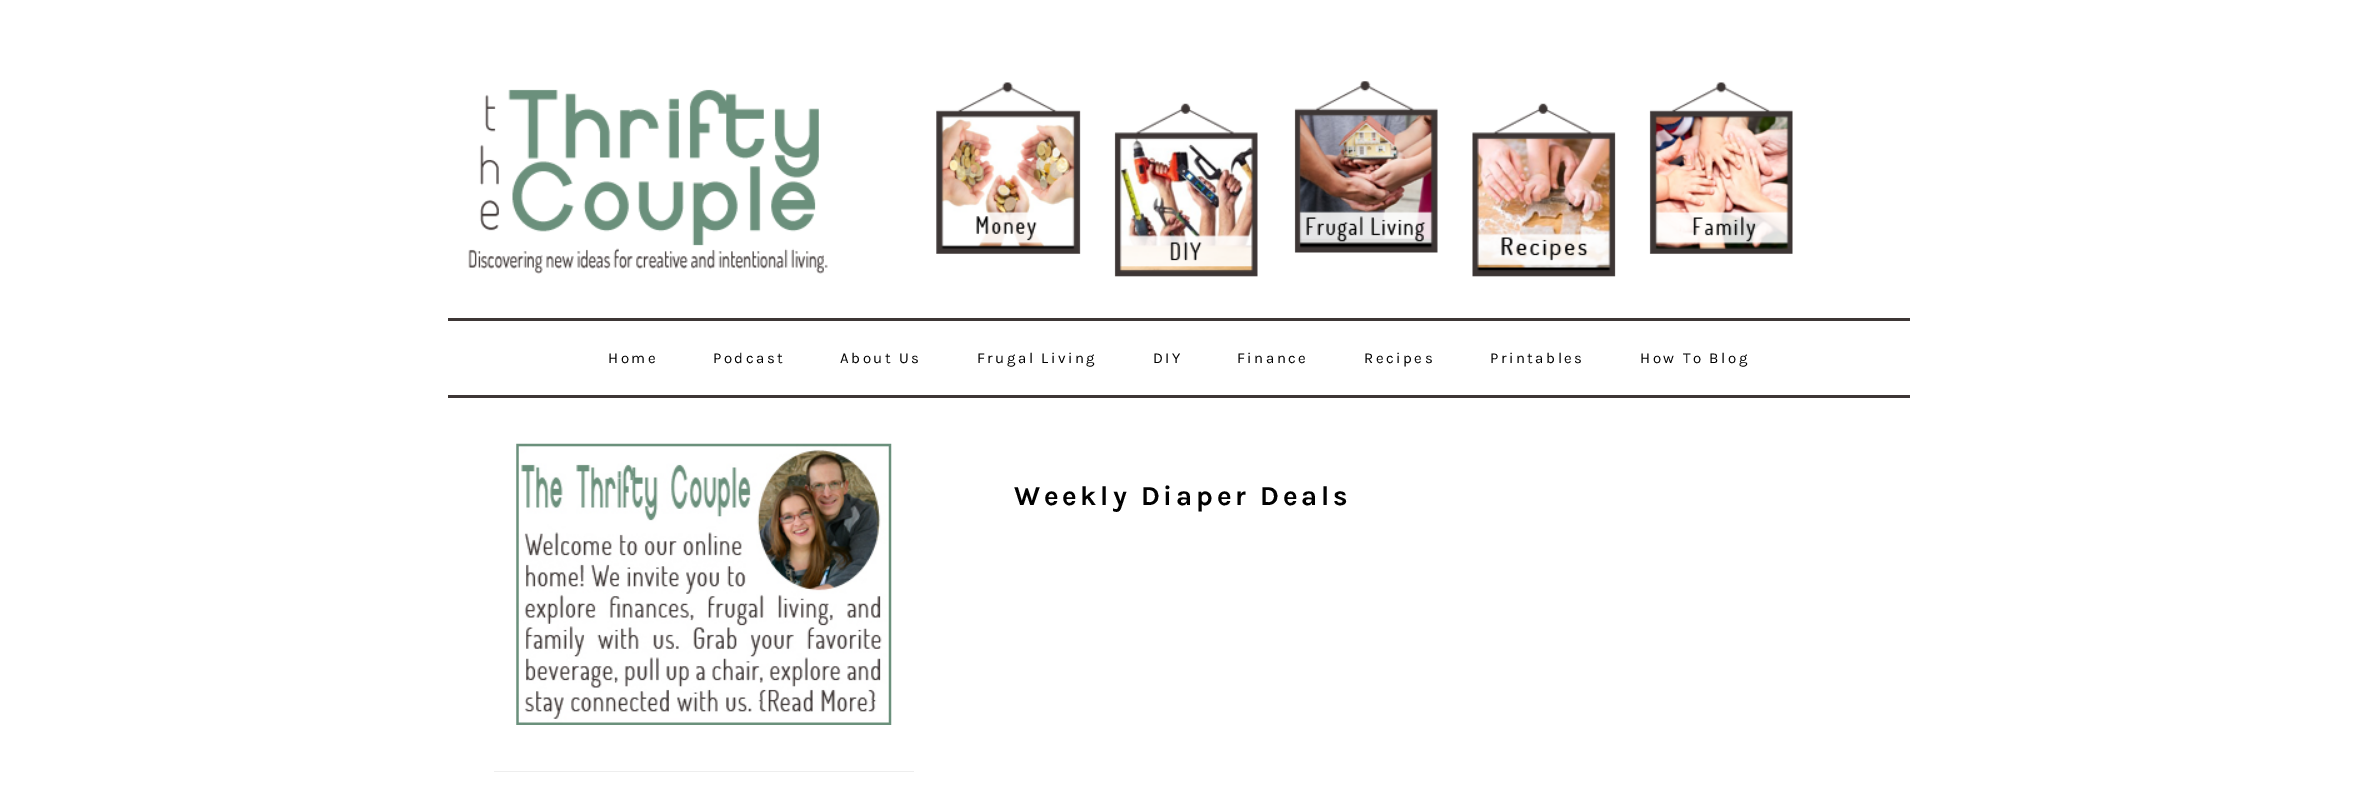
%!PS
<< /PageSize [2357 806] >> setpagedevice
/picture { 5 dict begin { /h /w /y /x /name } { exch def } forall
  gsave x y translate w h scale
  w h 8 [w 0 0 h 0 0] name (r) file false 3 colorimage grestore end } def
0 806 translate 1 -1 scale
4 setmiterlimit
1 setgray
0 0 2357 806 rectfill
(img1.rgb) 468 81 1325 196 picture
0.239 0.212 0.208 setrgbcolor
448 318 1462 3 rectfill
448 395 1462 3 rectfill
/Karla-Regular [15 0 0 -15 0 0] selectfont
0.004 setgray
608 363 moveto 2.5 0 (Home) ashow
713 363 moveto 2.5 0 (Podcast) ashow
840 363 moveto 2.5 0 (About Us) ashow
977 363 moveto 2.5 0 (Frugal Living) ashow
1153 363 moveto 2.5 0 (DIY) ashow
1237 363 moveto 2.5 0 (Finance) ashow
1364 363 moveto 2.5 0 (Recipes) ashow
1490 363 moveto 2.5 0 (Printables) ashow
1640 363 moveto 2.5 0 (How To Blog) ashow
0.933 setgray
494 771 420 1 rectfill
(img2.rgb) 516 443 376 282 picture
/Karla-Bold [27.5 0 0 -27.5 0 0] selectfont
0.004 setgray
1014 505 moveto 3.75 0 (Weekly Diaper Deals) ashow
showpage
